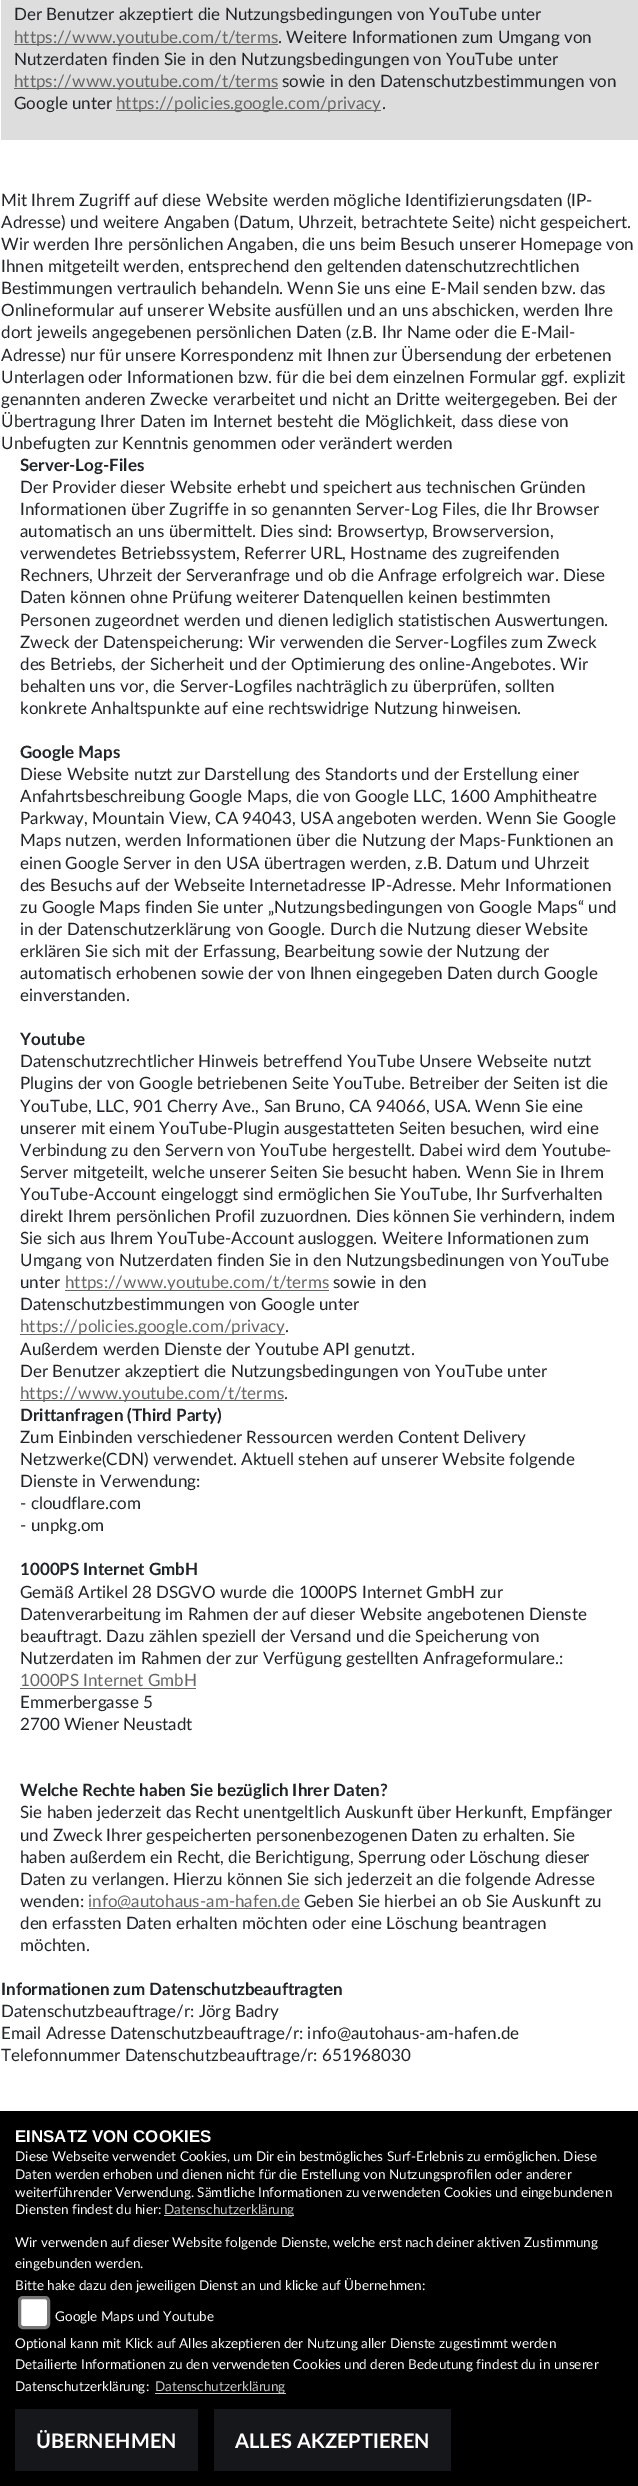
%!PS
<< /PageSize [638 2486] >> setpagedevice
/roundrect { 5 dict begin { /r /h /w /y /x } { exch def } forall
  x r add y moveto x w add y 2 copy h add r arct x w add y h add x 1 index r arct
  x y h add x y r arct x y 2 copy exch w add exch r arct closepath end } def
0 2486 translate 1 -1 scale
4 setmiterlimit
1 setgray
0 0 638 2486 rectfill
0.867 setgray
1 0 637 140 rectfill
/Lato-Regular [17 0 0 -17 0 0] selectfont
0.129 0.145 0.161 setrgbcolor
14 20 moveto (Der Benutzer akzeptiert die Nutzungsbedingungen von YouTube unter) show
0.4 setgray
14 44 264 1 rectfill
14 43 moveto (https://www.youtube.com/t/terms) show
0.129 0.145 0.161 setrgbcolor
278 43 moveto (. Weitere Informationen zum Umgang von) show
14 65 moveto (Nutzerdaten finden Sie in den Nutzungsbedingungen von YouTube unter) show
0.4 setgray
14 88 264 1 rectfill
14 87 moveto (https://www.youtube.com/t/terms) show
0.129 0.145 0.161 setrgbcolor
282 87 moveto (sowie in den Datenschutzbestimmungen von) show
14 109 moveto (Google unter) show
0.4 setgray
116 110 265 1 rectfill
116 109 moveto (https://policies.google.com/privacy) show
0.129 0.145 0.161 setrgbcolor
382 109 moveto (.) show
1 206 moveto (Mit Ihrem Zugriff auf diese Website werden mögliche Identifizierungsdaten \(IP-) show
1 228 moveto (Adresse\) und weitere Angaben \(Datum, Uhrzeit, betrachtete Seite\) nicht gespeichert.) show
1 250 moveto (Wir werden Ihre persönlichen Angaben, die uns beim Besuch unserer Homepage von) show
1 272 moveto (Ihnen mitgeteilt werden, entsprechend den geltenden datenschutzrechtlichen) show
1 294 moveto (Bestimmungen vertraulich behandeln. Wenn Sie uns eine E-Mail senden bzw. das) show
1 316 moveto (Onlineformular auf unserer Website ausfüllen und an uns abschicken, werden Ihre) show
1 338 moveto (dort jeweils angegebenen persönlichen Daten \(z.B. Ihr Name oder die E-Mail-) show
1 361 moveto (Adresse\) nur für unsere Korrespondenz mit Ihnen zur Übersendung der erbetenen) show
1 383 moveto (Unterlagen oder Informationen bzw. für die bei dem einzelnen Formular ggf. explizit) show
1 405 moveto (genannten anderen Zwecke verarbeitet und nicht an Dritte weitergegeben. Bei der) show
1 427 moveto (Übertragung Ihrer Daten im Internet besteht die Möglichkeit, dass diese von) show
1 449 moveto (Unbefugten zur Kenntnis genommen oder verändert werden) show
/Lato-Bold [17 0 0 -17 0 0] selectfont
20 471 moveto (Server-Log-Files) show
/Lato-Regular [17 0 0 -17 0 0] selectfont
20 493 moveto (Der Provider dieser Website erhebt und speichert aus technischen Gründen) show
20 515 moveto (Informationen über Zugriffe in so genannten Server-Log Files, die Ihr Browser) show
20 537 moveto (automatisch an uns übermittelt. Dies sind: Browsertyp, Browserversion,) show
20 559 moveto (verwendetes Betriebssystem, Referrer URL, Hostname des zugreifenden) show
20 581 moveto (Rechners, Uhrzeit der Serveranfrage und ob die Anfrage erfolgreich war. Diese) show
20 603 moveto (Daten können ohne Prüfung weiterer Datenquellen keinen bestimmten) show
20 626 moveto (Personen zugeordnet werden und dienen lediglich statistischen Auswertungen.) show
20 648 moveto (Zweck der Datenspeicherung: Wir verwenden die Server-Logfiles zum Zweck) show
20 670 moveto (des Betriebs, der Sicherheit und der Optimierung des online-Angebotes. Wir) show
20 692 moveto (behalten uns vor, die Server-Logfiles nachträglich zu überprüfen, sollten) show
20 714 moveto (konkrete Anhaltspunkte auf eine rechtswidrige Nutzung hinweisen.) show
/Lato-Bold [17 0 0 -17 0 0] selectfont
20 758 moveto (Google Maps) show
/Lato-Regular [17 0 0 -17 0 0] selectfont
20 780 moveto (Diese Website nutzt zur Darstellung des Standorts und der Erstellung einer) show
20 802 moveto (Anfahrtsbeschreibung Google Maps, die von Google LLC, 1600 Amphitheatre) show
20 824 moveto (Parkway, Mountain View, CA 94043, USA angeboten werden. Wenn Sie Google) show
20 846 moveto (Maps nutzen, werden Informationen über die Nutzung der Maps-Funktionen an) show
20 869 moveto (einen Google Server in den USA übertragen werden, z.B. Datum und Uhrzeit) show
20 891 moveto (des Besuchs auf der Webseite Internetadresse IP-Adresse. Mehr Informationen) show
20 913 moveto (zu Google Maps finden Sie unter „Nutzungsbedingungen von Google Maps“ und) show
20 935 moveto (in der Datenschutzerklärung von Google. Durch die Nutzung dieser Website) show
20 957 moveto (erklären Sie sich mit der Erfassung, Bearbeitung sowie der Nutzung der) show
20 979 moveto (automatisch erhobenen sowie der von Ihnen eingegeben Daten durch Google) show
20 1001 moveto (einverstanden.) show
/Lato-Bold [17 0 0 -17 0 0] selectfont
20 1045 moveto (Youtube) show
/Lato-Regular [17 0 0 -17 0 0] selectfont
20 1067 moveto (Datenschutzrechtlicher Hinweis betreffend YouTube Unsere Webseite nutzt) show
20 1089 moveto (Plugins der von Google betriebenen Seite YouTube. Betreiber der Seiten ist die) show
20 1112 moveto (YouTube, LLC, 901 Cherry Ave., San Bruno, CA 94066, USA. Wenn Sie eine) show
20 1134 moveto (unserer mit einem YouTube-Plugin ausgestatteten Seiten besuchen, wird eine) show
20 1156 moveto (Verbindung zu den Servern von YouTube hergestellt. Dabei wird dem Youtube-) show
20 1178 moveto (Server mitgeteilt, welche unserer Seiten Sie besucht haben. Wenn Sie in Ihrem) show
20 1200 moveto (YouTube-Account eingeloggt sind ermöglichen Sie YouTube, Ihr Surfverhalten) show
20 1222 moveto (direkt Ihrem persönlichen Profil zuzuordnen. Dies können Sie verhindern, indem) show
20 1244 moveto (Sie sich aus Ihrem YouTube-Account ausloggen. Weitere Informationen zum) show
20 1266 moveto (Umgang von Nutzerdaten finden Sie in den Nutzungsbedinungen von YouTube) show
20 1288 moveto (unter) show
0.4 setgray
65 1290 264 1 rectfill
65 1288 moveto (https://www.youtube.com/t/terms) show
0.129 0.145 0.161 setrgbcolor
333 1288 moveto (sowie in den) show
20 1310 moveto (Datenschutzbestimmungen von Google unter) show
0.4 setgray
20 1334 265 1 rectfill
20 1332 moveto (https://policies.google.com/privacy) show
0.129 0.145 0.161 setrgbcolor
285 1332 moveto (.) show
20 1355 moveto (Außerdem werden Dienste der Youtube API genutzt.) show
20 1377 moveto (Der Benutzer akzeptiert die Nutzungsbedingungen von YouTube unter) show
0.4 setgray
20 1400 264 1 rectfill
20 1399 moveto (https://www.youtube.com/t/terms) show
0.129 0.145 0.161 setrgbcolor
284 1399 moveto (.) show
/Lato-Bold [17 0 0 -17 0 0] selectfont
20 1421 moveto (Drittanfragen \(Third Party\)) show
/Lato-Regular [17 0 0 -17 0 0] selectfont
20 1443 moveto (Zum Einbinden verschiedener Ressourcen werden Content Delivery) show
20 1465 moveto (Netzwerke\(CDN\) verwendet. Aktuell stehen auf unserer Website folgende) show
20 1487 moveto (Dienste in Verwendung:) show
20 1509 moveto (- cloudflare.com) show
20 1531 moveto (- unpkg.om) show
/Lato-Bold [17 0 0 -17 0 0] selectfont
20 1575 moveto (1000PS Internet GmbH) show
/Lato-Regular [17 0 0 -17 0 0] selectfont
20 1598 moveto (Gemäß Artikel 28 DSGVO wurde die 1000PS Internet GmbH zur) show
20 1620 moveto (Datenverarbeitung im Rahmen der auf dieser Website angebotenen Dienste) show
20 1642 moveto (beauftragt. Dazu zählen speziell der Versand und die Speicherung von) show
20 1664 moveto (Nutzerdaten im Rahmen der zur Verfügung gestellten Anfrageformulare.:) show
0.4 setgray
20 1686 moveto (1000PS Internet GmbH) show
20 1688 176 1 rectfill
0.129 0.145 0.161 setrgbcolor
20 1708 moveto (Emmerbergasse 5) show
20 1730 moveto (2700 Wiener Neustadt) show
/Lato-Bold [17 0 0 -17 0 0] selectfont
20 1796 moveto (Welche Rechte haben Sie bezüglich Ihrer Daten?) show
/Lato-Regular [17 0 0 -17 0 0] selectfont
20 1818 moveto (Sie haben jederzeit das Recht unentgeltlich Auskunft über Herkunft, Empfänger) show
20 1841 moveto (und Zweck Ihrer gespeicherten personenbezogenen Daten zu erhalten. Sie) show
20 1863 moveto (haben außerdem ein Recht, die Berichtigung, Sperrung oder Löschung dieser) show
20 1885 moveto (Daten zu verlangen. Hierzu können Sie sich jederzeit an die folgende Adresse) show
20 1907 moveto (wenden:) show
0.4 setgray
89 1908 211 1 rectfill
88 1907 moveto (info@autohaus-am-hafen.de) show
0.129 0.145 0.161 setrgbcolor
304 1907 moveto (Geben Sie hierbei an ob Sie Auskunft zu) show
20 1929 moveto (den erfassten Daten erhalten möchten oder eine Löschung beantragen) show
20 1951 moveto (möchten.) show
/Lato-Bold [17 0 0 -17 0 0] selectfont
1 1995 moveto (Informationen zum Datenschutzbeauftragten) show
/Lato-Regular [17 0 0 -17 0 0] selectfont
1 2017 moveto (Datenschutzbeauftrage/r: Jörg Badry) show
1 2039 moveto (Email Adresse Datenschutzbeauftrage/r: info@autohaus-am-hafen.de) show
1 2061 moveto (Telefonnummer Datenschutzbeauftrage/r: 651968030) show
0 setgray
0 2111 638 375 rectfill
/LiberationSans-Bold [16.9 0 0 -16.9 0 0] selectfont
1 setgray
15 2142 moveto (EINSATZ VON COOKIES) show
/Lato-Regular [13.5 0 0 -13.5 0 0] selectfont
15 2161 moveto (Diese Webseite verwendet Cookies, um Dir ein bestmögliches Surf-Erlebnis zu ermöglichen. Diese) show
15 2179 moveto (Daten werden erhoben und dienen nicht für die Erstellung von Nutzungsprofilen oder anderer) show
15 2197 moveto -0.25 0 32 (weiterführender Verwendung. Sämtliche Informationen zu verwendeten Cookies und eingebundenen) widthshow
15 2214 moveto (Diensten findest du hier:) show
0.8 setgray
164 2215 130 1 rectfill
164 2214 moveto (Datenschutzerklärung) show
1 setgray
15 2247 moveto (Wir verwenden auf dieser Website folgende Dienste, welche erst nach deiner aktiven Zustimmung) show
15 2268 moveto (eingebunden werden.) show
15 2290 moveto (Bitte hake dazu den jeweiligen Dienst an und klicke auf Übernehmen:) show
19.5 2297.5 29 30 3.5 roundrect gsave fill grestore
0.463 setgray
3 setlinewidth
stroke
1 setgray
55 2321 moveto (Google Maps und Youtube) show
15 2348 moveto (Optional kann mit Klick auf Alles akzeptieren der Nutzung aller Dienste zugestimmt werden) show
15 2369 moveto (Detailierte Informationen zu den verwendeten Cookies und deren Bedeutung findest du in unserer) show
15 2391 moveto (Datenschutzerklärung:) show
0.8 setgray
155 2393 131 1 rectfill
155 2391 moveto (Datenschutzerklärung) show
0.086 0.09 0.102 setrgbcolor
15 2409 183 62 rectfill
/Lato-Bold [20 0 0 -20 0 0] selectfont
1 setgray
36 2448 moveto (ÜBERNEHMEN) show
0.086 0.09 0.102 setrgbcolor
214 2409 237 62 rectfill
1 setgray
235 2448 moveto (ALLES AKZEPTIEREN) show
showpage
